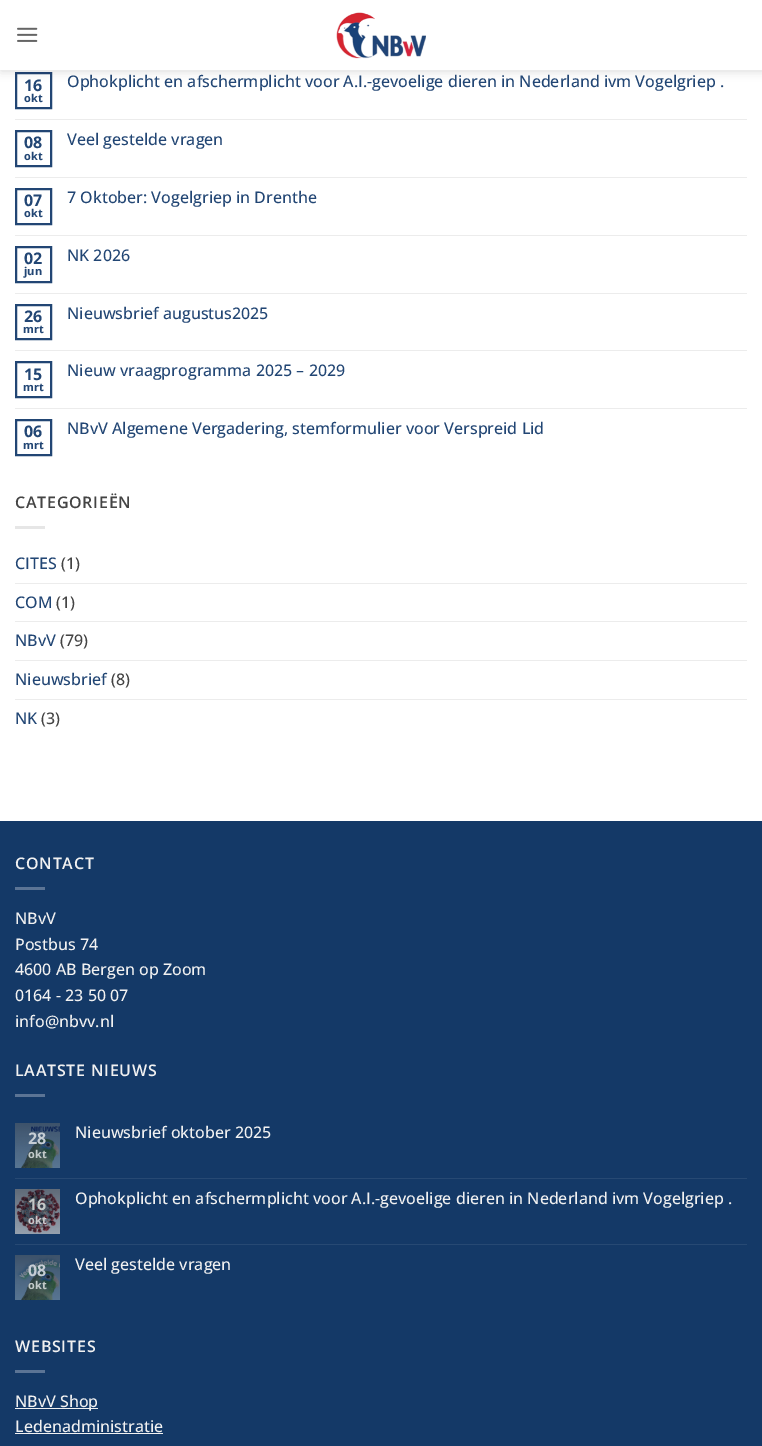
%!PS
<< /PageSize [762 1446] /PageUsesTransparency true >> setpagedevice
/alpha { dup .setfillconstantalpha .setstrokeconstantalpha } def
/roundrect { 5 dict begin { /r /h /w /y /x } { exch def } forall
  x r add y moveto x w add y 2 copy h add r arct x w add y h add x 1 index r arct
  x y h add x y r arct x y 2 copy exch w add exch r arct closepath end } def
/shadow { 12 dict begin { /a /b /q /h /w /y /x } { exch def } forall gsave /was 0 def
  9 -2 -9 { dup b mul 4 div /e exch def 1 sub .425 mul 2.718 exch exp 1 add a .99 .min exch div /now exch def
    1 1 now sub 1 was sub div sub alpha /was now def
    w h .min e 2 mul add 0 gt { x e sub y e sub w e 2 mul add h e 2 mul add
      q e add b .6 mul add w h .min 2 div e add .min 0 .max roundrect fill } if } for grestore end } def
/picture { 5 dict begin { /h /w /y /x /name } { exch def } forall
  gsave x y translate w h scale
  w h 8 [w 0 0 h 0 0] name (r) file false 3 colorimage grestore end } def
0 .pushpdf14devicefilter
0 1446 translate 1 -1 scale
4 setmiterlimit
1 setgray
0 0 762 1446 rectfill
0.133 0.275 0.455 setrgbcolor
2 setlinewidth
16 73 35 35 rectstroke
0 setgray
1 1 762 70 0 5 0.15 shadow
1 setgray
0 0 762 70 rectfill
(img1.rgb) 17 27 21 15 picture
(img2.rgb) 336 12 90 47 picture
/OpenSans-Bold [16 0 0 -16 0 0] selectfont
0.133 0.275 0.455 setrgbcolor
24 91 moveto (16) show
/OpenSans-Bold [11 0 0 -11 0 0] selectfont
24 102 moveto (okt) show
/OpenSans-Medium [16 0 0 -16 0 0] selectfont
67 87 moveto (Ophokplicht en afschermplicht voor A.I.-gevoelige dieren in Nederland ivm Vogelgriep .) show
0.925 setgray
15 119 732 1 rectfill
0.133 0.275 0.455 setrgbcolor
16 131 35 35 rectstroke
/OpenSans-Bold [16 0 0 -16 0 0] selectfont
24 148 moveto (08) show
/OpenSans-Bold [11 0 0 -11 0 0] selectfont
24 160 moveto (okt) show
/OpenSans-Medium [16 0 0 -16 0 0] selectfont
67 145 moveto (Veel gestelde vragen) show
0.925 setgray
15 177 732 1 rectfill
0.133 0.275 0.455 setrgbcolor
16 189 35 35 rectstroke
/OpenSans-Bold [16 0 0 -16 0 0] selectfont
24 206 moveto (07) show
/OpenSans-Bold [11 0 0 -11 0 0] selectfont
24 217 moveto (okt) show
/OpenSans-Medium [16 0 0 -16 0 0] selectfont
67 203 moveto (7 Oktober: Vogelgriep in Drenthe) show
0.925 setgray
15 235 732 1 rectfill
0.133 0.275 0.455 setrgbcolor
16 247 35 35 rectstroke
/OpenSans-Bold [16 0 0 -16 0 0] selectfont
24 264 moveto (02) show
/OpenSans-Bold [11 0 0 -11 0 0] selectfont
24 275 moveto (jun) show
/OpenSans-Medium [16 0 0 -16 0 0] selectfont
67 261 moveto (NK 2026) show
0.925 setgray
15 293 732 1 rectfill
0.133 0.275 0.455 setrgbcolor
16 305 35 34 rectstroke
/OpenSans-Bold [16 0 0 -16 0 0] selectfont
24 322 moveto (26) show
/OpenSans-Bold [11 0 0 -11 0 0] selectfont
23 333 moveto (mrt) show
/OpenSans-Medium [16 0 0 -16 0 0] selectfont
67 319 moveto (Nieuwsbrief augustus2025) show
0.925 setgray
15 350 732 1 rectfill
0.133 0.275 0.455 setrgbcolor
16 362 35 35 rectstroke
/OpenSans-Bold [16 0 0 -16 0 0] selectfont
24 380 moveto (15) show
/OpenSans-Bold [11 0 0 -11 0 0] selectfont
23 391 moveto (mrt) show
/OpenSans-Medium [16 0 0 -16 0 0] selectfont
67 376 moveto (Nieuw vraagprogramma 2025 – 2029) show
0.925 setgray
15 408 732 1 rectfill
0.133 0.275 0.455 setrgbcolor
16 420 35 35 rectstroke
/OpenSans-Bold [16 0 0 -16 0 0] selectfont
24 437 moveto (06) show
/OpenSans-Bold [11 0 0 -11 0 0] selectfont
23 449 moveto (mrt) show
/OpenSans-Medium [16 0 0 -16 0 0] selectfont
67 434 moveto (NBvV Algemene Vergadering, stemformulier voor Verspreid Lid) show
/OpenSans-SemiBold [16 0 0 -16 0 0] selectfont
0.267 setgray
15 508 moveto 0.75 0 (CATEGORIEËN) ashow
0.902 setgray
15 526 30 3 rectfill
/OpenSans-Medium [16 0 0 -16 0 0] selectfont
0.133 0.275 0.455 setrgbcolor
15 569 moveto (CITES) show
0.267 setgray
61 569 moveto (\(1\)) show
0.925 setgray
15 583 732 1 rectfill
0.133 0.275 0.455 setrgbcolor
15 608 moveto (COM) show
0.267 setgray
56 608 moveto (\(1\)) show
0.925 setgray
15 621 732 1 rectfill
0.133 0.275 0.455 setrgbcolor
15 646 moveto (NBvV) show
0.267 setgray
60 646 moveto (\(79\)) show
0.925 setgray
15 660 732 1 rectfill
0.133 0.275 0.455 setrgbcolor
15 685 moveto (Nieuwsbrief) show
0.267 setgray
111 685 moveto (\(8\)) show
0.925 setgray
15 699 732 1 rectfill
0.133 0.275 0.455 setrgbcolor
15 724 moveto (NK) show
0.267 setgray
41 724 moveto (\(3\)) show
0.078 0.224 0.404 setrgbcolor
0 821 762 625 rectfill
/OpenSans-SemiBold [16 0 0 -16 0 0] selectfont
0.945 setgray
15 869 moveto 0.75 0 (CONTACT) ashow
0.357 0.455 0.584 setrgbcolor
15 887 30 3 rectfill
/OpenSans-Medium [16 0 0 -16 0 0] selectfont
0.945 setgray
15 924 moveto (NBvV) show
15 950 moveto (Postbus 74) show
15 975 moveto (4600 AB Bergen op Zoom) show
15 1001 moveto (0164 - 23 50 07) show
15 1027 moveto (info@nbvv.nl) show
/OpenSans-SemiBold [16 0 0 -16 0 0] selectfont
15 1076 moveto 0.75 0 (LAATSTE NIEUWS) ashow
0.357 0.455 0.584 setrgbcolor
15 1094 30 3 rectfill
(img3.rgb) 15 1123 45 45 picture
/OpenSans-Bold [16 0 0 -16 0 0] selectfont
0.776 0.804 0.831 setrgbcolor
28 1144 moveto (28) show
/OpenSans-Bold [11 0 0 -11 0 0] selectfont
0.765 0.792 0.788 setrgbcolor
28 1158 moveto (okt) show
/OpenSans-Medium [16 0 0 -16 0 0] selectfont
0.945 setgray
75 1138 moveto (Nieuwsbrief oktober 2025) show
0.153 0.286 0.451 setrgbcolor
15 1178 732 1 rectfill
(img4.rgb) 15 1189 45 45 picture
/OpenSans-Bold [16 0 0 -16 0 0] selectfont
0.765 0.792 0.788 setrgbcolor
28 1210 moveto (16) show
/OpenSans-Bold [11 0 0 -11 0 0] selectfont
0.788 0.78 0.792 setrgbcolor
28 1224 moveto (okt) show
/OpenSans-Medium [16 0 0 -16 0 0] selectfont
0.945 setgray
75 1204 moveto (Ophokplicht en afschermplicht voor A.I.-gevoelige dieren in Nederland ivm Vogelgriep .) show
0.153 0.286 0.451 setrgbcolor
15 1244 732 1 rectfill
(img5.rgb) 15 1255 45 45 picture
/OpenSans-Bold [16 0 0 -16 0 0] selectfont
0.776 0.804 0.831 setrgbcolor
28 1276 moveto (08) show
/OpenSans-Bold [11 0 0 -11 0 0] selectfont
0.765 0.792 0.788 setrgbcolor
28 1289 moveto (okt) show
/OpenSans-Medium [16 0 0 -16 0 0] selectfont
0.945 setgray
75 1270 moveto (Veel gestelde vragen) show
/OpenSans-SemiBold [16 0 0 -16 0 0] selectfont
15 1352 moveto 0.75 0 (WEBSITES) ashow
0.357 0.455 0.584 setrgbcolor
15 1370 30 3 rectfill
0.945 setgray
15 1408 83 1 rectfill
/OpenSans-Medium [16 0 0 -16 0 0] selectfont
15 1407 moveto (NBvV Shop) show
15 1432 moveto (Ledenadministratie) show
15 1433 148 1 rectfill
.poppdf14devicefilter showpage
